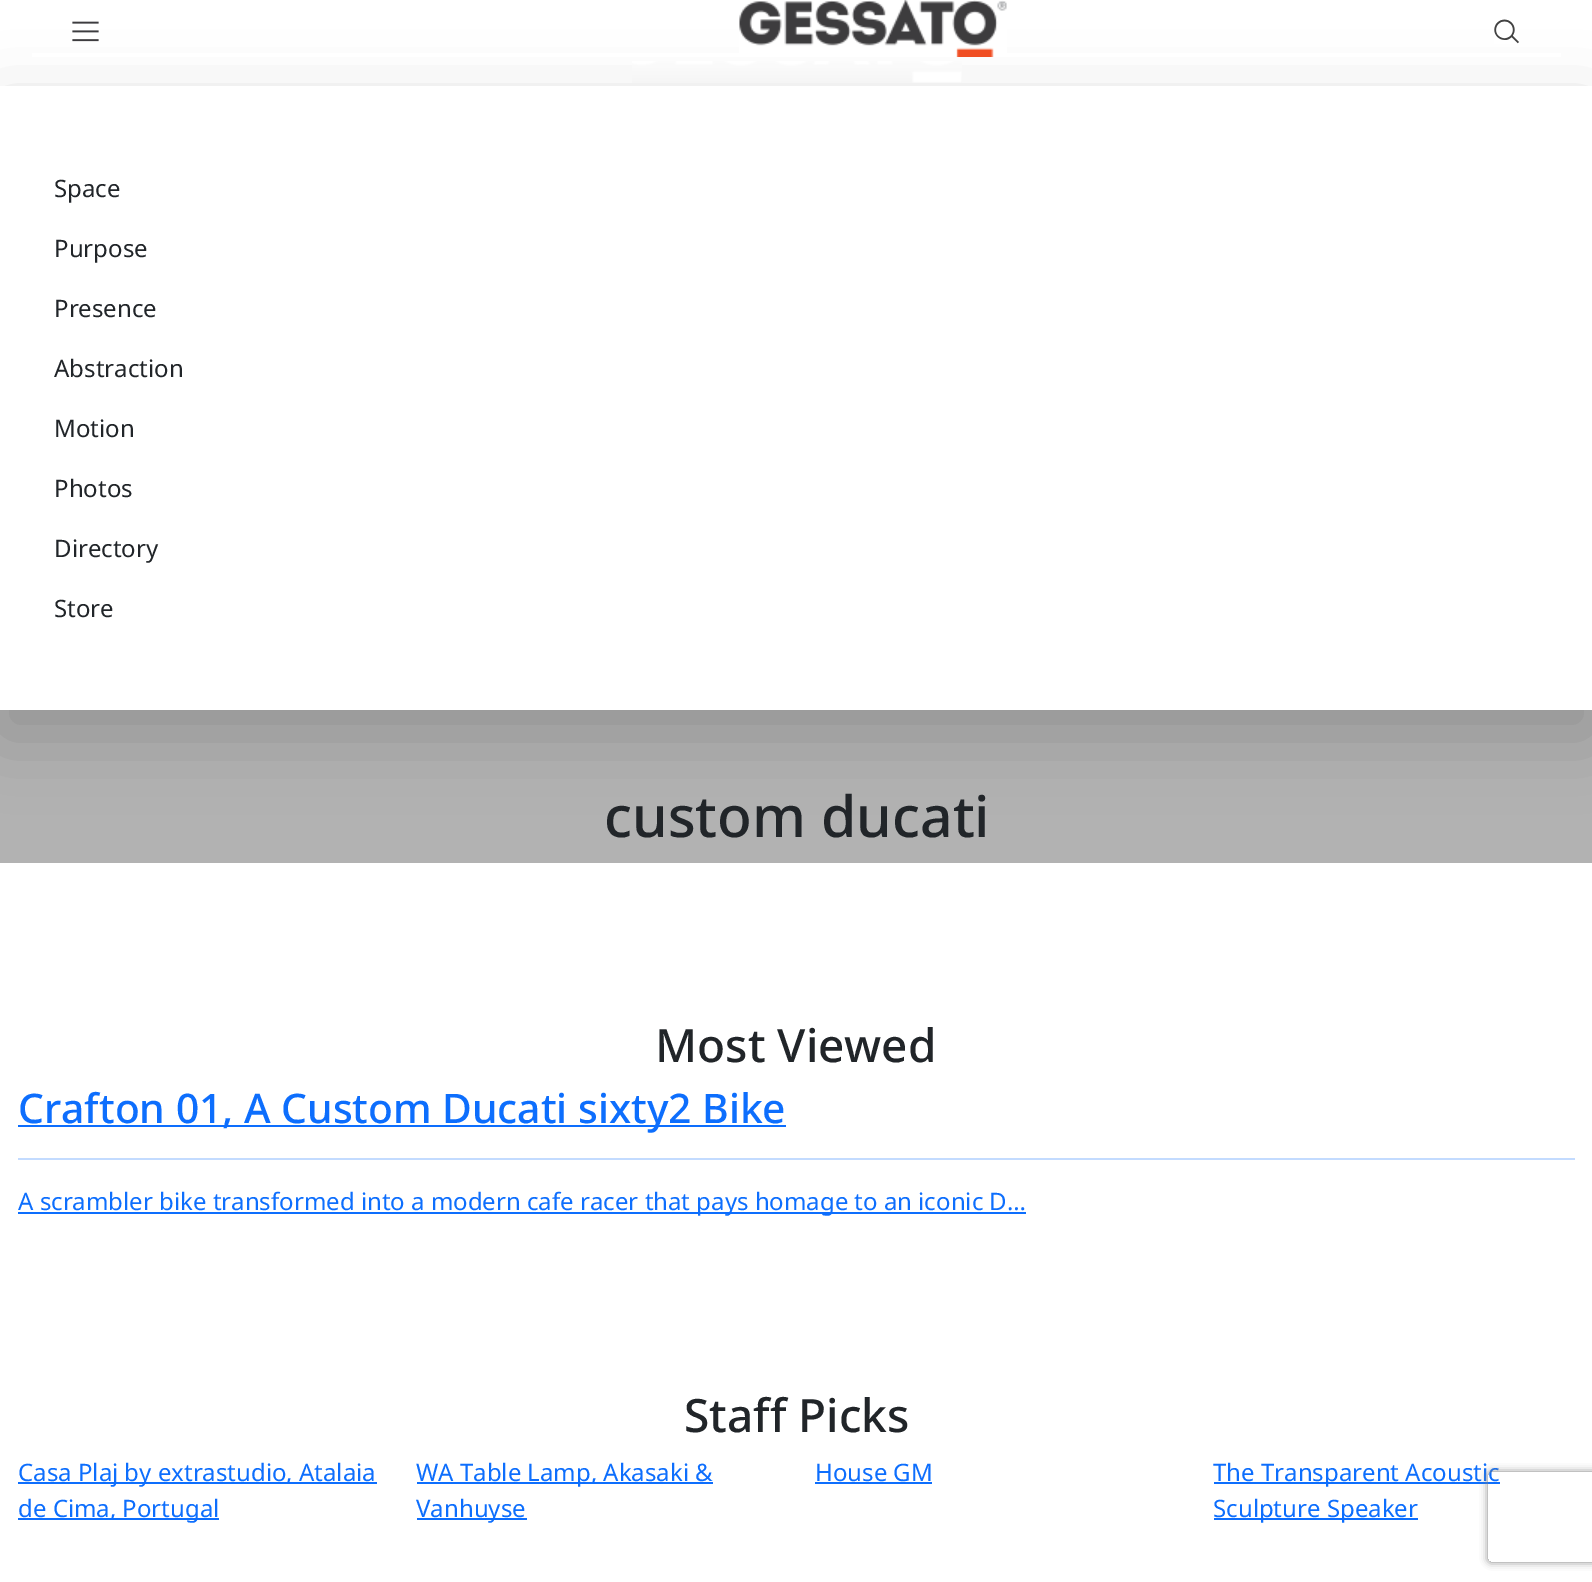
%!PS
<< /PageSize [1592 1582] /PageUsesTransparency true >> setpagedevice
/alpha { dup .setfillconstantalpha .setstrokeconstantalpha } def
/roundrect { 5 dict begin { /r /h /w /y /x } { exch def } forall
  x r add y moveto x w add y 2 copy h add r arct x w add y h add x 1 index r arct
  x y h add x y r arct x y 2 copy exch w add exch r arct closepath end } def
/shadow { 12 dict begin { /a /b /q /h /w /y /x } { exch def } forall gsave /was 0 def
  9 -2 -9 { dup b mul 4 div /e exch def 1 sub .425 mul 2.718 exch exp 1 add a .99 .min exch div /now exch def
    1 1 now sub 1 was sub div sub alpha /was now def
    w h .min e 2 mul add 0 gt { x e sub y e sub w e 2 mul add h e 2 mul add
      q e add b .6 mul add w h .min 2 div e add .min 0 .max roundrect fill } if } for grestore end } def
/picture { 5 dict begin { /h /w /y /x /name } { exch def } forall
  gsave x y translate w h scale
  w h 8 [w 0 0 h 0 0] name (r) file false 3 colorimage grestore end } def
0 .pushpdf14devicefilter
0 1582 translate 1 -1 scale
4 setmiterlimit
1 setgray
0 0 1592 1582 rectfill
gsave
newpath 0 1 moveto 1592 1 lineto 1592 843 lineto 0 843 lineto closepath 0 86 moveto 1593 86 lineto 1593 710 lineto 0 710 lineto closepath eoclip newpath
0 setgray
0 110 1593 624 0 36 0.18 shadow
grestore
32 53 1529 4 rectfill
(img1.rgb) 72 21 27 21 picture
(img2.rgb) 739 0 268 57 picture
(img3.rgb) 1494 19 25 25 picture
(img4.rgb) 632 61 330 22 picture
/NotoSans-Regular [24 0 0 -24 0 0] selectfont
0.129 0.145 0.161 setrgbcolor
54 197 moveto (Space) show
54 257 moveto (Purpose) show
54 317 moveto (Presence) show
54 377 moveto (Abstraction) show
54 437 moveto (Motion) show
54 497 moveto (Photos) show
54 557 moveto (Directory) show
54 617 moveto (Store) show
0.3 alpha
0 setgray
0 710 1592 153 rectfill
/NotoSans-Medium [57 0 0 -57 0 0] selectfont
1 alpha
0.129 0.145 0.161 setrgbcolor
604 837 moveto (custom ducati) show
/NotoSans-Medium [46 0 0 -46 0 0] selectfont
655 1062 moveto (Most Viewed) show
0.051 0.431 0.992 setrgbcolor
18 1125 768 2 rectfill
/NotoSans-Medium [40.75 0 0 -40.75 0 0] selectfont
18 1123 moveto (Crafton 01, A Custom Ducati sixty2 Bike) show
0.765 0.859 1 setrgbcolor
18 1158 1557 2 rectfill
0.051 0.431 0.992 setrgbcolor
18 1212 1008 2 rectfill
/NotoSans-Regular [24 0 0 -24 0 0] selectfont
18 1210 moveto (A scrambler bike transformed into a modern cafe racer that pays homage to an iconic D…) show
/NotoSans-Medium [46 0 0 -46 0 0] selectfont
0.129 0.145 0.161 setrgbcolor
684 1432 moveto (Staff Picks) show
0.051 0.431 0.992 setrgbcolor
18 1482 359 2 rectfill
/NotoSans-Regular [24 0 0 -24 0 0] selectfont
18 1481 moveto (Casa Plaj by extrastudio, Atalaia) show
18 1518 201 2 rectfill
18 1517 moveto (de Cima, Portugal) show
417 1482 296 2 rectfill
416 1481 moveto (WA Table Lamp, Akasaki &) show
417 1518 110 2 rectfill
416 1517 moveto (Vanhuyse) show
815 1481 moveto (House GM) show
815 1482 117 2 rectfill
1214 1482 286 2 rectfill
1213 1481 moveto (The Transparent Acoustic) show
1214 1518 204 2 rectfill
1213 1517 moveto (Sculpture Speaker) show
gsave
newpath 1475 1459 moveto 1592 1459 lineto 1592 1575 lineto 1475 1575 lineto closepath 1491 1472 moveto 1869 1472 lineto 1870.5 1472 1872 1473.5 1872 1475 curveto 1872 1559 lineto 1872 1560.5 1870.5 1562 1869 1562 curveto 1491 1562 lineto 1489.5 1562 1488 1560.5 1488 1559 curveto 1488 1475 lineto 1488 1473.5 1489.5 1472 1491 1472 curveto closepath eoclip newpath
0.502 setgray
1488 1472 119 90 3 4 1 shadow
grestore
.poppdf14devicefilter showpage
